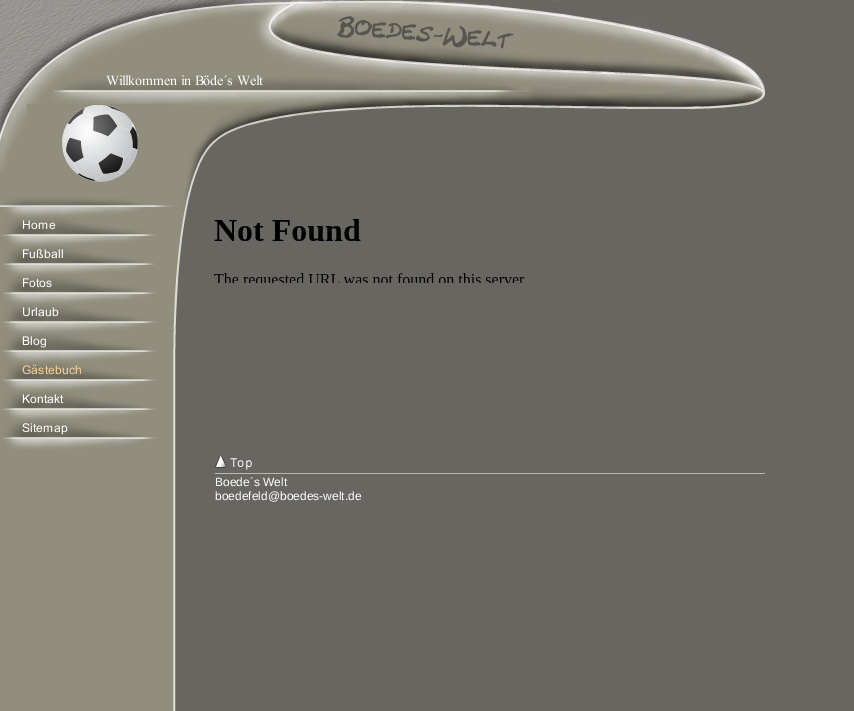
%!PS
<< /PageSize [854 711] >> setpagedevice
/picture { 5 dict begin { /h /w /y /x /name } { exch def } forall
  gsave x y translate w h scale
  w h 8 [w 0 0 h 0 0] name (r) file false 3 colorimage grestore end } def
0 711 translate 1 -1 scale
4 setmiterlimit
0.408 0.4 0.38 setrgbcolor
0 0 854 711 rectfill
(img1.rgb) 0 504 176 207 picture
(img2.rgb) 0 104 176 400 picture
(img3.rgb) 0 0 268 104 picture
(img4.rgb) 268 0 497 89 picture
(img5.rgb) 105 72 398 16 picture
(img6.rgb) 268 89 497 15 picture
(img7.rgb) 0 104 27 68 picture
(img8.rgb) 62 105 76 77 picture
(img9.rgb) 0 197 173 10 picture
(img10.rgb) 3 207 153 29 picture
(img11.rgb) 3 236 153 29 picture
(img12.rgb) 3 265 153 29 picture
(img13.rgb) 3 294 153 29 picture
(img14.rgb) 3 323 153 29 picture
(img15.rgb) 3 352 153 29 picture
(img16.rgb) 3 381 153 29 picture
(img17.rgb) 3 410 153 29 picture
(img18.rgb) 5 439 140 11 picture
(img19.rgb) 173 104 41 245 picture
(img20.rgb) 214 104 538 39 picture
(img21.rgb) 214 219 311 64 picture
(img22.rgb) 215 455 37 15 picture
0.718 0.718 0.706 setrgbcolor
215 473 550 1 rectfill
/LiberationSans-Regular [12 0 0 -12 0 0] selectfont
1 setgray
215 486 moveto (Boede´s Welt) show
215 500 moveto (boedefeld@boedes-welt.de) show
showpage
